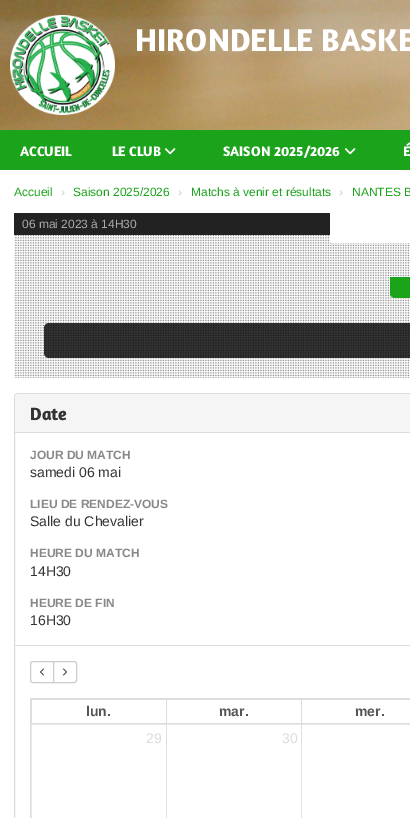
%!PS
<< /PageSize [410 818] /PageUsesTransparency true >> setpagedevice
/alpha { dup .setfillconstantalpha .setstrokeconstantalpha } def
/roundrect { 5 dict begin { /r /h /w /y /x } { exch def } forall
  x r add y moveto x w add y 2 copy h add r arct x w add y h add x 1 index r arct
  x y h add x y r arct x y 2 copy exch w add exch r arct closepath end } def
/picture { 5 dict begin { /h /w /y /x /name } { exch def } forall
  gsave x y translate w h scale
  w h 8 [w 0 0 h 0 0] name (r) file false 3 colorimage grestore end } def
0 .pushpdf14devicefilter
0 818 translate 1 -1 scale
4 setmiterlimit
1 setgray
0 0 410 818 rectfill
(img1.rgb) 0 0 410 132 picture
(img2.rgb) 10 15 105 100 picture
/Amaranth-Bold [32 0 0 -32 0 0] selectfont
135 51 moveto (HIRONDELLE BASKE) show
0.106 0.639 0.106 setrgbcolor
newpath 2 130 moveto 410 130 lineto 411 130 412 131 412 132 curveto 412 170 lineto 0 170 lineto 0 132 lineto 0 131 1 130 2 130 curveto closepath fill
/Amaranth-Bold [14 0 0 -14 0 0] selectfont
1 setgray
20 156 moveto (ACCUEIL) show
112 156 moveto (LE CLUB) show
(img3.rgb) 165 148 11 7 picture
223 156 moveto (SAISON 2025/2026) show
(img3.rgb) 345 148 11 7 picture
403 156 moveto (É) show
/LiberationSans-Regular [12 0 0 -12 0 0] selectfont
0.106 0.639 0.106 setrgbcolor
14 196 moveto (Accueil) show
0.8 setgray
61 196 moveto (›) show
0.106 0.639 0.106 setrgbcolor
73 196 moveto (Saison 2025/2026) show
0.8 setgray
178 196 moveto (›) show
0.106 0.639 0.106 setrgbcolor
191 196 moveto (Matchs à venir et résultats) show
0.8 setgray
339 196 moveto (›) show
0.106 0.639 0.106 setrgbcolor
352 196 moveto (NANTES B) show
(img4.rgb) 14 235 396 143 picture
0.133 setgray
14 213 316 22 rectfill
0.667 setgray
22 228 moveto (06 mai 2023 à 14H30) show
1 setgray
newpath 330 213 moveto 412 213 lineto 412 241 lineto 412 242 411 243 410 243 curveto 332 243 lineto 331 243 330 242 330 241 curveto closepath fill
0.106 0.639 0.106 setrgbcolor
newpath 390 277 moveto 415 277 lineto 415 293 lineto 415 296 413 298 410 298 curveto 395 298 lineto 392 298 390 296 390 293 curveto closepath fill
0.8 alpha
0 setgray
44 323 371 35 5 roundrect fill
1 alpha
0.867 setgray
14.5 393.5 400 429 3.5 roundrect stroke
0.961 setgray
newpath 18 394 moveto 410 394 lineto 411.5 394 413 395.5 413 397 curveto 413 433 lineto 15 433 lineto 15 397 lineto 15 395.5 16.5 394 18 394 curveto closepath fill
0.867 setgray
15 432 395 1 rectfill
/Amaranth-Bold [18 0 0 -18 0 0] selectfont
0.2 setgray
30 420 moveto (Date) show
/LiberationSans-Bold [12 0 0 -12 0 0] selectfont
0.533 setgray
30 459 moveto (JOUR DU MATCH) show
/LiberationSans-Regular [14 0 0 -14 0 0] selectfont
0.2 setgray
30 477 moveto (samedi 06 mai) show
/LiberationSans-Bold [12 0 0 -12 0 0] selectfont
0.533 setgray
30 508 moveto (LIEU DE RENDEZ-VOUS) show
/LiberationSans-Regular [14 0 0 -14 0 0] selectfont
0.2 setgray
30 526 moveto (Salle du Chevalier) show
/LiberationSans-Bold [12 0 0 -12 0 0] selectfont
0.533 setgray
30 557 moveto (HEURE DU MATCH) show
/LiberationSans-Regular [14 0 0 -14 0 0] selectfont
0.2 setgray
30 576 moveto (14H30) show
/LiberationSans-Bold [12 0 0 -12 0 0] selectfont
0.533 setgray
30 607 moveto (HEURE DE FIN) show
/LiberationSans-Regular [14 0 0 -14 0 0] selectfont
0.2 setgray
30 625 moveto (16H30) show
0.867 setgray
15 645 395 1 rectfill
0.8 setgray
newpath 33 661.5 moveto 53.5 661.5 lineto 53.5 682.5 lineto 33 682.5 lineto 31.5 682.5 30.5 681.5 30.5 680 curveto 30.5 664 lineto 30.5 662.5 31.5 661.5 33 661.5 curveto closepath stroke
(img5.rgb) 40 668 4 8 picture
1 setgray
newpath 53.5 661.5 moveto 74 661.5 lineto 75.5 661.5 76.5 662.5 76.5 664 curveto 76.5 680 lineto 76.5 681.5 75.5 682.5 74 682.5 curveto 53.5 682.5 lineto closepath gsave fill grestore
0.8 setgray
stroke
(img6.rgb) 63 668 4 8 picture
0.867 setgray
30 698 380 1 rectfill
30 698 1 120 rectfill
301 699 109 1 rectfill
301 723 109 1 rectfill
301 699 1 25 rectfill
166 699 136 1 rectfill
166 723 136 1 rectfill
166 699 1 25 rectfill
31 699 136 1 rectfill
31 723 136 1 rectfill
31 699 1 25 rectfill
/LiberationSans-Bold [14 0 0 -14 0 0] selectfont
0.333 setgray
86 716 moveto (lun.) show
219 716 moveto (mar.) show
355 716 moveto (mer.) show
0.906 setgray
301 724 109 1 rectfill
0.7 alpha
0.867 setgray
166 724 136 1 rectfill
31 724 136 1 rectfill
1 alpha
0.878 setgray
166 724 1 94 rectfill
0.906 setgray
31 724 1 94 rectfill
/LiberationSans-Regular [14 0 0 -14 0 0] selectfont
0.859 setgray
146 743 moveto (29) show
0.878 setgray
301 724 1 94 rectfill
0.859 setgray
282 743 moveto (30) show
.poppdf14devicefilter showpage
